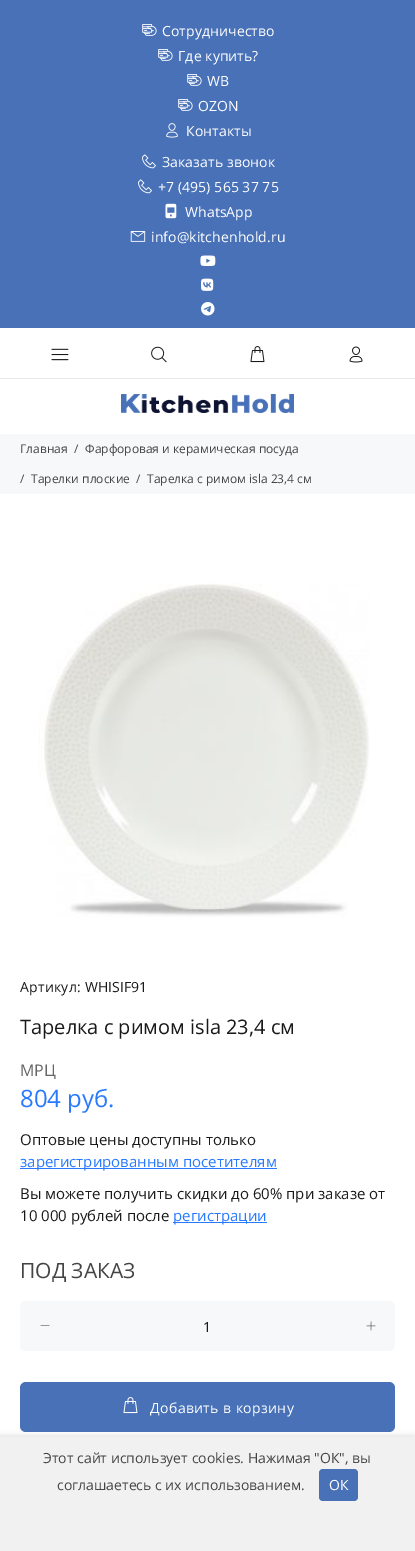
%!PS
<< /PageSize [415 1551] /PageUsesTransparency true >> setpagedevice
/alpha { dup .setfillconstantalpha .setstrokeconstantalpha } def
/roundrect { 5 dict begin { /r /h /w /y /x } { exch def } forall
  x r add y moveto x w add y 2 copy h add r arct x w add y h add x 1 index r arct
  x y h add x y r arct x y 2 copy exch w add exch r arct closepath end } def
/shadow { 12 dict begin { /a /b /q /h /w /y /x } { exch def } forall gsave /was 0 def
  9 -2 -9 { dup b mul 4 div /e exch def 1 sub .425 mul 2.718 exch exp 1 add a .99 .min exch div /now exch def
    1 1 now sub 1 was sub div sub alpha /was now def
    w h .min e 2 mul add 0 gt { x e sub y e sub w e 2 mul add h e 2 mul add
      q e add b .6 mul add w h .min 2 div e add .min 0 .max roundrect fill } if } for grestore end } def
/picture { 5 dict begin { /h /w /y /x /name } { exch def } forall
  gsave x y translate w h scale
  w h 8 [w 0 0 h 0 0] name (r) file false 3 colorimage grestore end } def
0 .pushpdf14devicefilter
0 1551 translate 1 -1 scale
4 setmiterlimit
1 setgray
0 0 415 1551 rectfill
0.282 0.443 0.722 setrgbcolor
0 0 415 328 rectfill
(img1.rgb) 142 24 15 12 picture
/OpenSans-Regular [14 0 0 -14 0 0] selectfont
1 setgray
162 36 moveto 0.1 0 (Сотрудничество) ashow
(img1.rgb) 158 49 15 12 picture
178 61 moveto 0.1 0 (Где купить?) ashow
(img1.rgb) 187 74 15 12 picture
207 86 moveto 0.1 0 (WB) ashow
(img1.rgb) 178 99 15 12 picture
198 111 moveto 0.1 0 (OZON) ashow
(img2.rgb) 166 123 12 15 picture
186 136 moveto 0.1 0 (Контакты) ashow
(img3.rgb) 142 154 14 15 picture
162 167 moveto 0.1 0 (Заказать звонок) ashow
(img3.rgb) 138 179 14 15 picture
158 192 moveto 0.1 0 (+7 \(495\) 565 37 75) ashow
(img4.rgb) 165 203 12 16 picture
185 217 moveto 0.1 0 (WhatsApp) ashow
(img5.rgb) 130 231 16 11 picture
151 242 moveto 0.1 0 (info@kitchenhold.ru) ashow
(img6.rgb) 200 255 16 11 picture
(img7.rgb) 201 278 13 13 picture
(img8.rgb) 201 302 14 14 picture
(img9.rgb) 51 348 18 13 picture
(img10.rgb) 151 346 16 17 picture
(img11.rgb) 250 346 15 17 picture
(img12.rgb) 349 346 14 17 picture
0.914 0.906 0.906 setrgbcolor
0 378 415 1 rectfill
(img13.rgb) 121 394 173 19 picture
0.969 0.973 0.98 setrgbcolor
0 434 415 60 rectfill
/OpenSans-Regular [12 0 0 -12 0 0] selectfont
0.267 setgray
20 453 moveto (Главная) show
74 453 moveto (/) show
85 453 moveto (Фарфоровая и керамическая посуда) show
20 483 moveto (/) show
31 483 moveto (Тарелки плоские) show
136 483 moveto (/) show
147 483 moveto (Тарелка с римом isla 23,4 см) show
(img14.rgb) 38 583 332 334 picture
/OpenSans-Regular [14 0 0 -14 0 0] selectfont
0.098 setgray
20 992 moveto 0.25 0 (Артикул:) ashow
85 992 moveto (WHISIF91) show
/OpenSans-Regular [20 0 0 -20 0 0] selectfont
20 1034 moveto (Тарелка с римом isla 23,4 см) show
/OpenSans-Regular [16 0 0 -16 0 0] selectfont
0.4 setgray
20 1076 moveto (МРЦ) show
/OpenSans-Regular [24 0 0 -24 0 0] selectfont
0.157 0.475 0.996 setrgbcolor
20 1107 moveto (804 руб.) show
/OpenSans-Regular [15 0 0 -15 0 0] selectfont
0.098 setgray
20 1145 moveto (Оптовые цены доступны только) show
0.157 0.475 0.996 setrgbcolor
20 1168 257 1 rectfill
20 1167 moveto (зарегистрированным посетителям) show
0.098 setgray
20 1199 moveto (Вы можете получить скидки до 60% при заказе от) show
20 1221 moveto (10 000 рублей после) show
0.157 0.475 0.996 setrgbcolor
173 1222 94 1 rectfill
173 1221 moveto (регистрации) show
/OpenSans-Regular [21 0 0 -21 0 0] selectfont
0.267 setgray
20 1278 moveto (ПОД ЗАКАЗ) show
0.969 0.973 0.98 setrgbcolor
20 1301 375 50 6 roundrect fill
0.267 setgray
newpath 49.5 1325.5 moveto 49.5 1326 lineto 40.5 1326 lineto 41 1325.5 lineto closepath fill
/OpenSans-Regular [14 0 0 -14 0 0] selectfont
0.098 setgray
203 1332 moveto (1) show
(img15.rgb) 366 1321 10 10 picture
0.282 0.443 0.722 setrgbcolor
20 1382 375 50 6 roundrect fill
(img16.rgb) 123 1397 15 17 picture
1 setgray
150 1413 moveto 0.4 0 (Добавить в корзину) ashow
0 setgray
0 1435 415 114 0 2.5 0.1 shadow
0.945 setgray
0 1437 415 114 rectfill
0.267 setgray
43 1463 moveto (Этот сайт использует cookies. Нажимая "ОК", вы) show
57 1490 moveto (соглашаетесь с их использованием.) show
0.282 0.443 0.722 setrgbcolor
319 1469 39 32 4 roundrect fill
1 setgray
329 1490 moveto (ОК) show
.poppdf14devicefilter showpage
